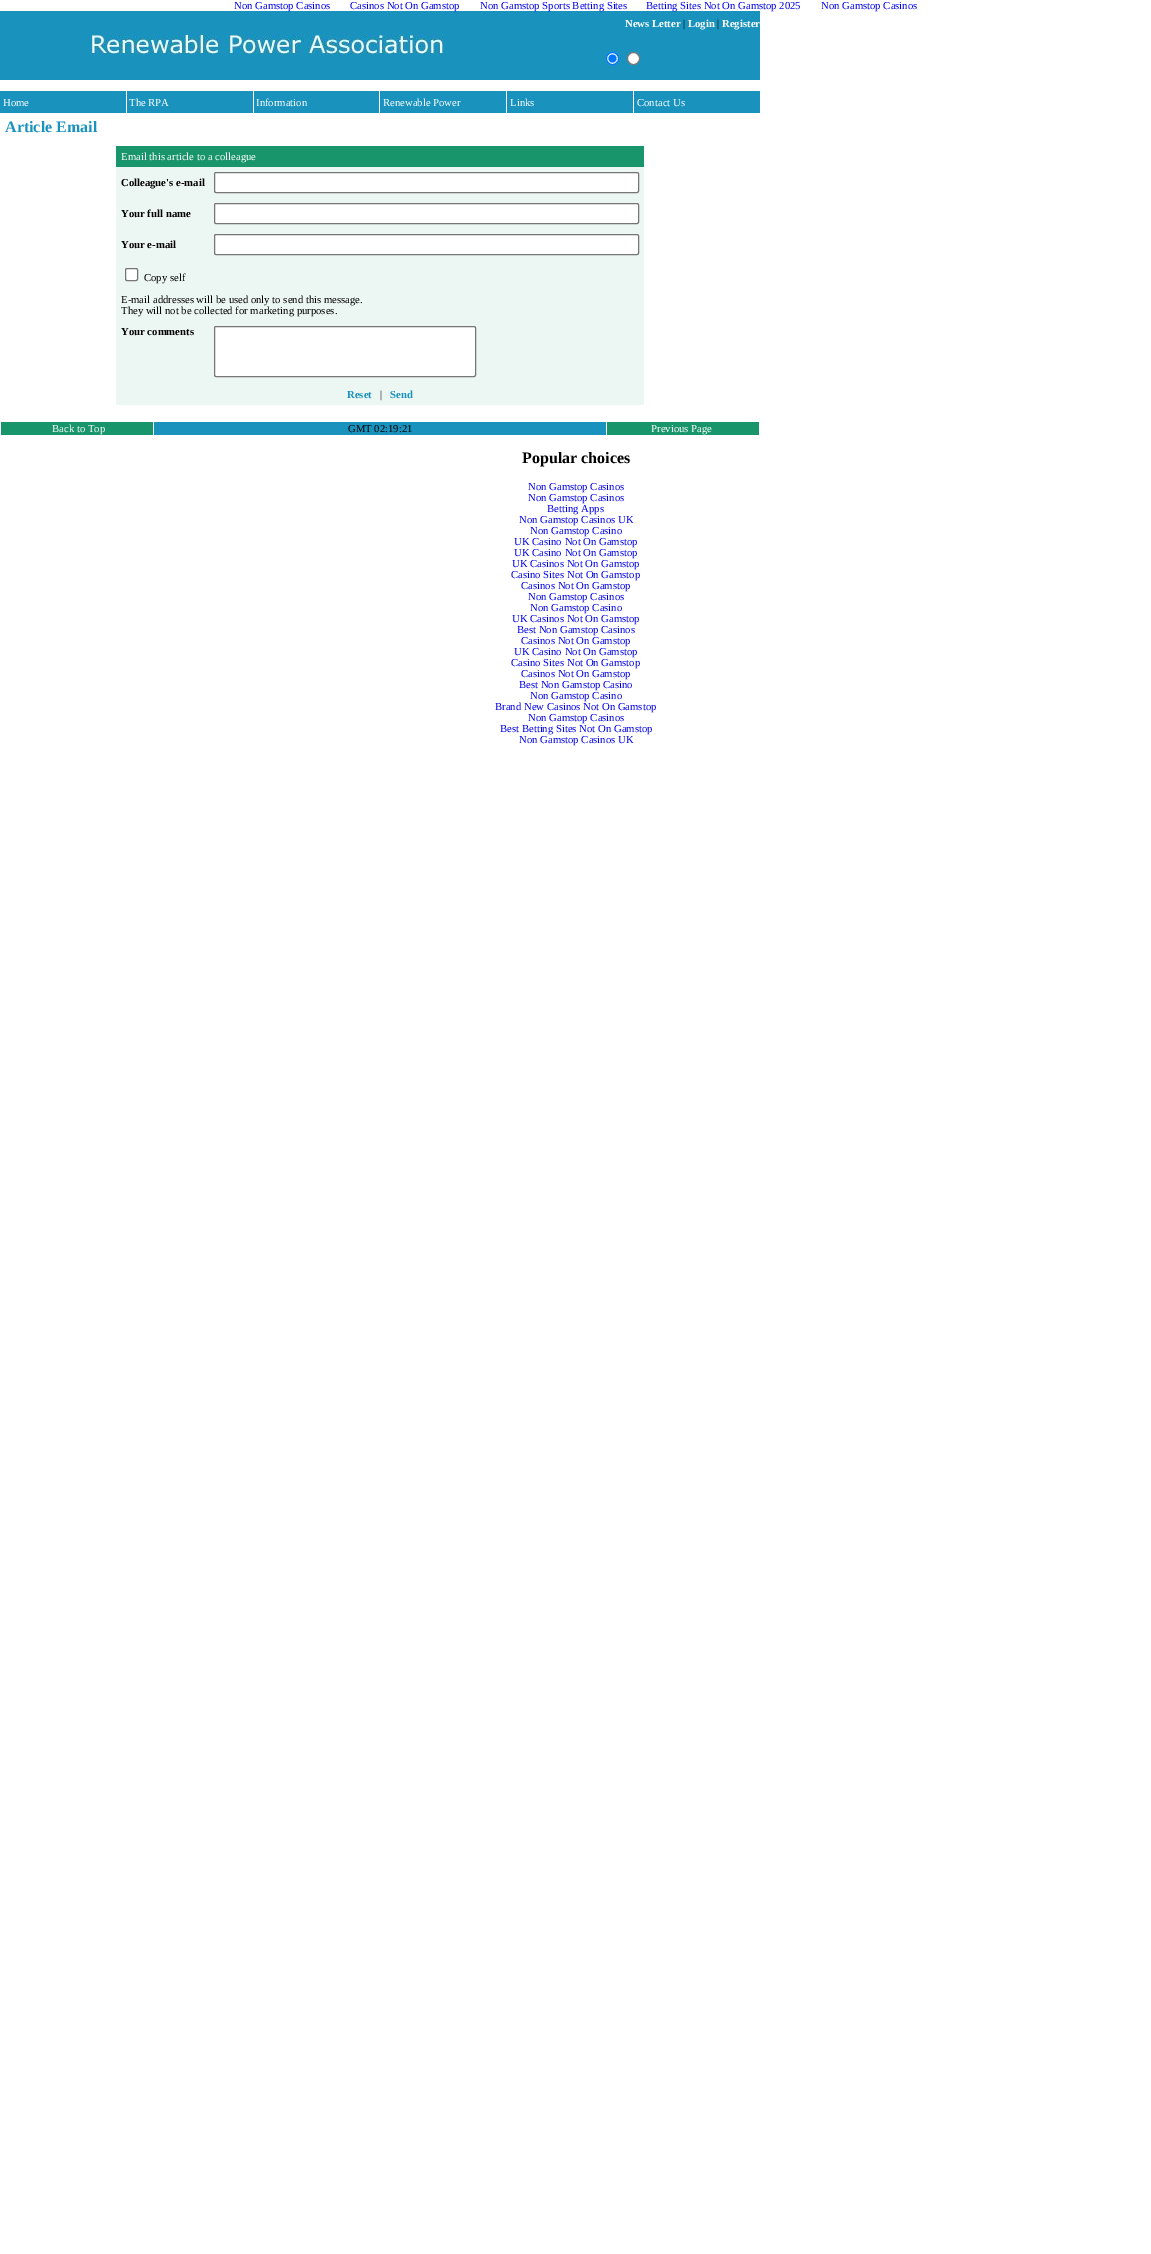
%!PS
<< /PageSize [1151 2254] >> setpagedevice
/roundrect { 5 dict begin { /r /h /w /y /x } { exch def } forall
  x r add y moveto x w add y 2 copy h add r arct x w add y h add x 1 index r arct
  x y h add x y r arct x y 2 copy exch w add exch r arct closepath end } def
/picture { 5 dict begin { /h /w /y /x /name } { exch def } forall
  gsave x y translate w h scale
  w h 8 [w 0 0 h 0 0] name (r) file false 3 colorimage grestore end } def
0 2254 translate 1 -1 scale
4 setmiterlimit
1 setgray
0 0 1151 2254 rectfill
0.098 0.576 0.745 setrgbcolor
0 11 760 69 rectfill
/LiberationSerif-Regular [10.7 0 0 -10.7 0 0] selectfont
0 0 0.933 setrgbcolor
234 9 moveto (Non Gamstop Casinos) show
350 9 moveto (Casinos Not On Gamstop) show
480 9 moveto (Non Gamstop Sports Betting Sites) show
646 9 moveto (Betting Sites Not On Gamstop 2025) show
821 9 moveto (Non Gamstop Casinos) show
/LiberationSerif-Bold [10.7 0 0 -10.7 0 0] selectfont
1 setgray
625 27 moveto (News Letter) show
/LiberationSerif-Regular [10.7 0 0 -10.7 0 0] selectfont
0 setgray
683 27 moveto (|) show
/LiberationSerif-Bold [10.7 0 0 -10.7 0 0] selectfont
1 setgray
688 27 moveto (Login) show
/LiberationSerif-Regular [10.7 0 0 -10.7 0 0] selectfont
0 setgray
717 27 moveto (|) show
/LiberationSerif-Bold [10.7 0 0 -10.7 0 0] selectfont
1 setgray
722 27 moveto (Register) show
(img1.rgb) 92 35 351 19 picture
newpath 612.5 58.5 6 0 360 arc closepath gsave fill grestore
0 0.459 1 setrgbcolor
stroke
newpath 612.5 58.5 4 0 360 arc closepath fill
1 setgray
newpath 633.5 58.5 6 0 360 arc closepath gsave fill grestore
0.463 setgray
stroke
0.098 0.576 0.745 setrgbcolor
0 91 126 22 rectfill
/LiberationSerif-Regular [10.7 0 0 -10.7 0 0] selectfont
1 setgray
3 106 moveto (Home) show
0.098 0.576 0.745 setrgbcolor
127 91 126 22 rectfill
1 setgray
129 106 moveto (The RPA) show
0.098 0.576 0.745 setrgbcolor
254 91 125 22 rectfill
1 setgray
256 106 moveto (Information) show
0.098 0.576 0.745 setrgbcolor
380 91 126 22 rectfill
1 setgray
383 106 moveto (Renewable Power) show
0.098 0.576 0.745 setrgbcolor
507 91 126 22 rectfill
1 setgray
510 106 moveto (Links) show
0.098 0.576 0.745 setrgbcolor
634 91 126 22 rectfill
1 setgray
637 106 moveto (Contact Us) show
/LiberationSerif-Bold [16 0 0 -16 0 0] selectfont
0.098 0.576 0.745 setrgbcolor
5 132 moveto (Article Email) show
0.098 0.584 0.424 setrgbcolor
116 146 528 21 rectfill
/LiberationSerif-Regular [10.7 0 0 -10.7 0 0] selectfont
1 setgray
121 160 moveto (Email this article to a colleague) show
0.925 0.965 0.953 setrgbcolor
116 167 528 238 rectfill
/LiberationSerif-Bold [10.7 0 0 -10.7 0 0] selectfont
0 setgray
121 186 moveto (Colleague's e-mail) show
1 setgray
214.5 172.5 424 20 1.5 roundrect gsave fill grestore
0.463 setgray
stroke
0 setgray
121 217 moveto (Your full name) show
1 setgray
214.5 203.5 424 20 1.5 roundrect gsave fill grestore
0.463 setgray
stroke
0 setgray
121 248 moveto (Your e-mail) show
1 setgray
214.5 234.5 424 20 1.5 roundrect gsave fill grestore
0.463 setgray
stroke
1 setgray
125.5 268.5 12 12 1.5 roundrect gsave fill grestore
0.463 setgray
stroke
/LiberationSerif-Regular [10.7 0 0 -10.7 0 0] selectfont
0 setgray
144 281 moveto (Copy self) show
121 303 moveto (E-mail addresses will be used only to send this message.) show
121 314 moveto (They will not be collected for marketing purposes.) show
/LiberationSerif-Bold [10.7 0 0 -10.7 0 0] selectfont
121 335 moveto (Your comments) show
1 setgray
214.5 326.5 261 50 1.5 roundrect gsave fill grestore
0.463 setgray
stroke
0.098 0.576 0.745 setrgbcolor
347 398 moveto (Reset) show
/LiberationSerif-Regular [10.7 0 0 -10.7 0 0] selectfont
0 setgray
380 398 moveto (|) show
/LiberationSerif-Bold [10.7 0 0 -10.7 0 0] selectfont
0.098 0.576 0.745 setrgbcolor
390 398 moveto (Send) show
0.098 0.584 0.424 setrgbcolor
1 422 152 13 rectfill
/LiberationSerif-Regular [10.7 0 0 -10.7 0 0] selectfont
1 setgray
52 432 moveto (Back to Top) show
0.098 0.576 0.745 setrgbcolor
154 422 452 13 rectfill
0 setgray
348 432 moveto (GMT 02:19:21) show
0.098 0.584 0.424 setrgbcolor
607 422 152 13 rectfill
1 setgray
651 432 moveto (Previous Page) show
/LiberationSerif-Bold [16 0 0 -16 0 0] selectfont
0 setgray
522 463 moveto (Popular choices) show
/LiberationSerif-Regular [10.7 0 0 -10.7 0 0] selectfont
0 0 0.933 setrgbcolor
528 490 moveto (Non Gamstop Casinos) show
528 501 moveto (Non Gamstop Casinos) show
547 512 moveto (Betting Apps) show
519 523 moveto (Non Gamstop Casinos UK) show
530 534 moveto (Non Gamstop Casino) show
514 545 moveto (UK Casino Not On Gamstop) show
514 556 moveto (UK Casino Not On Gamstop) show
512 567 moveto (UK Casinos Not On Gamstop) show
511 578 moveto (Casino Sites Not On Gamstop) show
521 589 moveto (Casinos Not On Gamstop) show
528 600 moveto (Non Gamstop Casinos) show
530 611 moveto (Non Gamstop Casino) show
512 622 moveto (UK Casinos Not On Gamstop) show
517 633 moveto (Best Non Gamstop Casinos) show
521 644 moveto (Casinos Not On Gamstop) show
514 655 moveto (UK Casino Not On Gamstop) show
511 666 moveto (Casino Sites Not On Gamstop) show
521 677 moveto (Casinos Not On Gamstop) show
519 688 moveto (Best Non Gamstop Casino) show
530 699 moveto (Non Gamstop Casino) show
495 710 moveto (Brand New Casinos Not On Gamstop) show
528 721 moveto (Non Gamstop Casinos) show
500 732 moveto (Best Betting Sites Not On Gamstop) show
519 743 moveto (Non Gamstop Casinos UK) show
showpage
